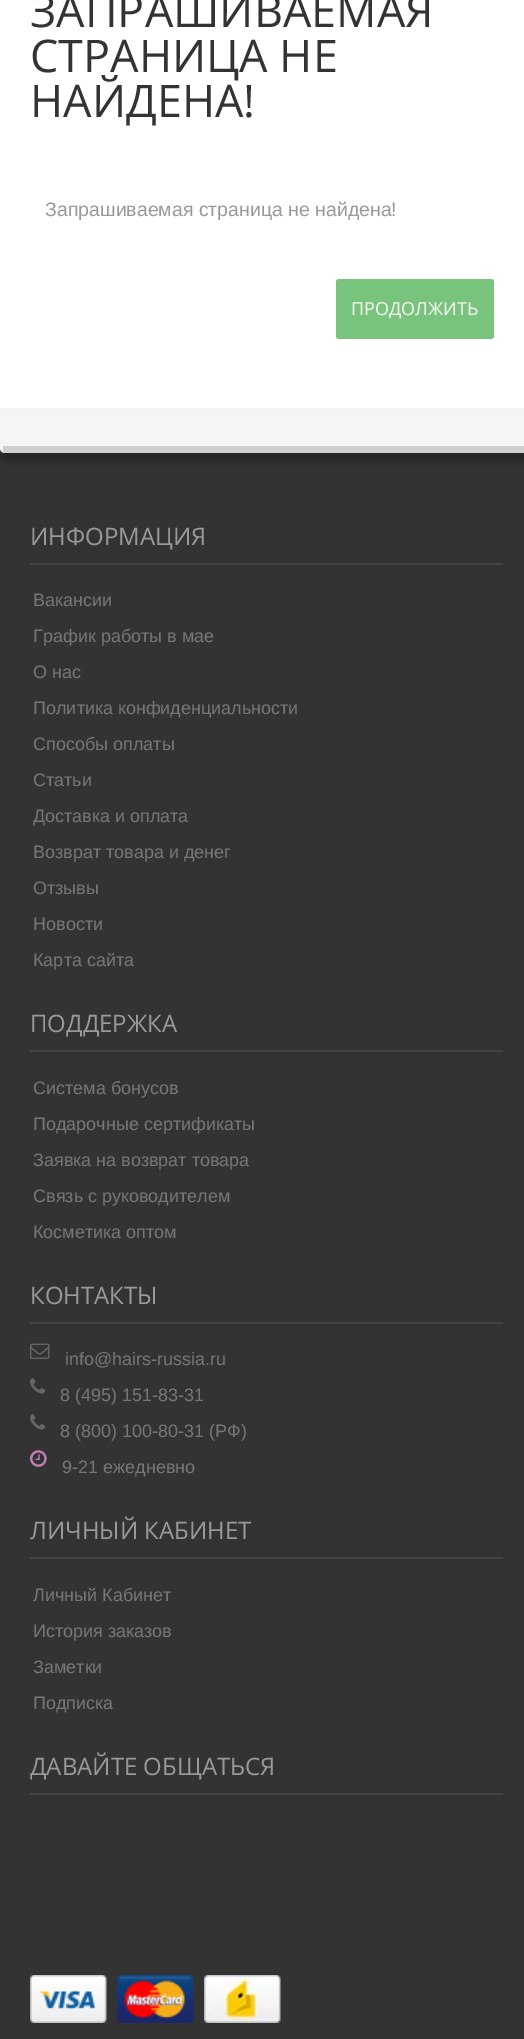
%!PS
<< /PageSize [524 2039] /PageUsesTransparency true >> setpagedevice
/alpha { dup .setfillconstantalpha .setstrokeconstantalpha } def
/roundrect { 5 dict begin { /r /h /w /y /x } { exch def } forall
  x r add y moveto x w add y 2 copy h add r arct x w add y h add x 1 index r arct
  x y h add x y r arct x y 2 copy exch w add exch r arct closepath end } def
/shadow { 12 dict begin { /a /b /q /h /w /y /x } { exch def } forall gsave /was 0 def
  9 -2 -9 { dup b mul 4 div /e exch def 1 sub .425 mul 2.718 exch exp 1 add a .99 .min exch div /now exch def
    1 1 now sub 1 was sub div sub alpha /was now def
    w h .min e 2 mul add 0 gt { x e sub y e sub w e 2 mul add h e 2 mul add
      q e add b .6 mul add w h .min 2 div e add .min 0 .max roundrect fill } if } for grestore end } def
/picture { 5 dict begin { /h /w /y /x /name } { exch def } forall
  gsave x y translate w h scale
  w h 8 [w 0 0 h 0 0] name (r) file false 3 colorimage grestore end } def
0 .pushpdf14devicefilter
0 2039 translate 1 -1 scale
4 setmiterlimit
1 setgray
0 0 524 2039 rectfill
/OpenSans-Regular [45 0 0 -45 0 0] selectfont
0.2 setgray
30 27 moveto (ЗАПРАШИВАЕМАЯ) show
30 72 moveto (СТРАНИЦА НЕ) show
30 117 moveto (НАЙДЕНА!) show
/LiberationSans-Regular [19.5 0 0 -19.5 0 0] selectfont
0.6 setgray
45 216 moveto (Запрашиваемая страница не найдена!) show
0.475 0.769 0.486 setrgbcolor
336 279 158 60 3 roundrect fill
/OpenSans-Regular [18 0 0 -18 0 0] selectfont
0.973 setgray
351 315 moveto (ПРОДОЛЖИТЬ) show
0.2 setgray
0 448 524 1591 rectfill
0.961 setgray
0 408 524 8 rectfill
0 setgray
0 423 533 38 5 4 0.3 shadow
0.961 setgray
newpath 0 416 moveto 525 416 lineto 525 453 lineto 5 453 lineto 2 453 0 451 0 448 curveto closepath fill
0.808 setgray
3 446 521 7 rectfill
0.267 setgray
30 563 473 2 rectfill
/OpenSans-Regular [24 0 0 -24 0 0] selectfont
0.6 setgray
30 545 moveto (ИНФОРМАЦИЯ) show
/LiberationSans-Regular [18 0 0 -18 0 0] selectfont
0.467 setgray
33 606 moveto (Вакансии) show
33 642 moveto (График работы в мае) show
33 678 moveto (О нас) show
33 714 moveto (Политика конфиденциальности) show
33 750 moveto (Способы оплаты) show
33 786 moveto (Статьи) show
33 822 moveto (Доставка и оплата) show
33 858 moveto (Возврат товара и денег) show
33 894 moveto (Отзывы) show
33 930 moveto (Новости) show
33 966 moveto (Карта сайта) show
0.267 setgray
30 1050 473 2 rectfill
/OpenSans-Regular [24 0 0 -24 0 0] selectfont
0.6 setgray
30 1032 moveto (ПОДДЕРЖКА) show
/LiberationSans-Regular [18 0 0 -18 0 0] selectfont
0.467 setgray
33 1094 moveto (Система бонусов) show
33 1130 moveto (Подарочные сертификаты) show
33 1166 moveto (Заявка на возврат товара) show
33 1202 moveto (Связь с руководителем) show
33 1238 moveto (Косметика оптом) show
0.267 setgray
30 1322 473 2 rectfill
/OpenSans-Regular [24 0 0 -24 0 0] selectfont
0.6 setgray
30 1304 moveto (КОНТАКТЫ) show
(img1.rgb) 30 1343 20 16 picture
/LiberationSans-Regular [18 0 0 -18 0 0] selectfont
0.467 setgray
65 1365 moveto (info@hairs-russia.ru) show
(img2.rgb) 30 1378 16 16 picture
60 1401 moveto (8 \(495\) 151-83-31) show
(img2.rgb) 30 1414 16 16 picture
60 1437 moveto (8 \(800\) 100-80-31 \(РФ\)) show
(img3.rgb) 30 1450 17 17 picture
62 1473 moveto (9-21 ежедневно) show
0.267 setgray
30 1557 473 2 rectfill
/OpenSans-Regular [24 0 0 -24 0 0] selectfont
0.6 setgray
30 1539 moveto (ЛИЧНЫЙ КАБИНЕТ) show
/LiberationSans-Regular [18 0 0 -18 0 0] selectfont
0.467 setgray
33 1601 moveto (Личный Кабинет) show
33 1637 moveto (История заказов) show
33 1673 moveto (Заметки) show
33 1709 moveto (Подписка) show
0.267 setgray
30 1793 473 2 rectfill
/OpenSans-Regular [24 0 0 -24 0 0] selectfont
0.6 setgray
30 1775 moveto (ДАВАЙТЕ ОБЩАТЬСЯ) show
(img4.rgb) 30 1975 77 48 picture
(img5.rgb) 117 1975 77 48 picture
(img6.rgb) 204 1975 77 48 picture
.poppdf14devicefilter showpage
